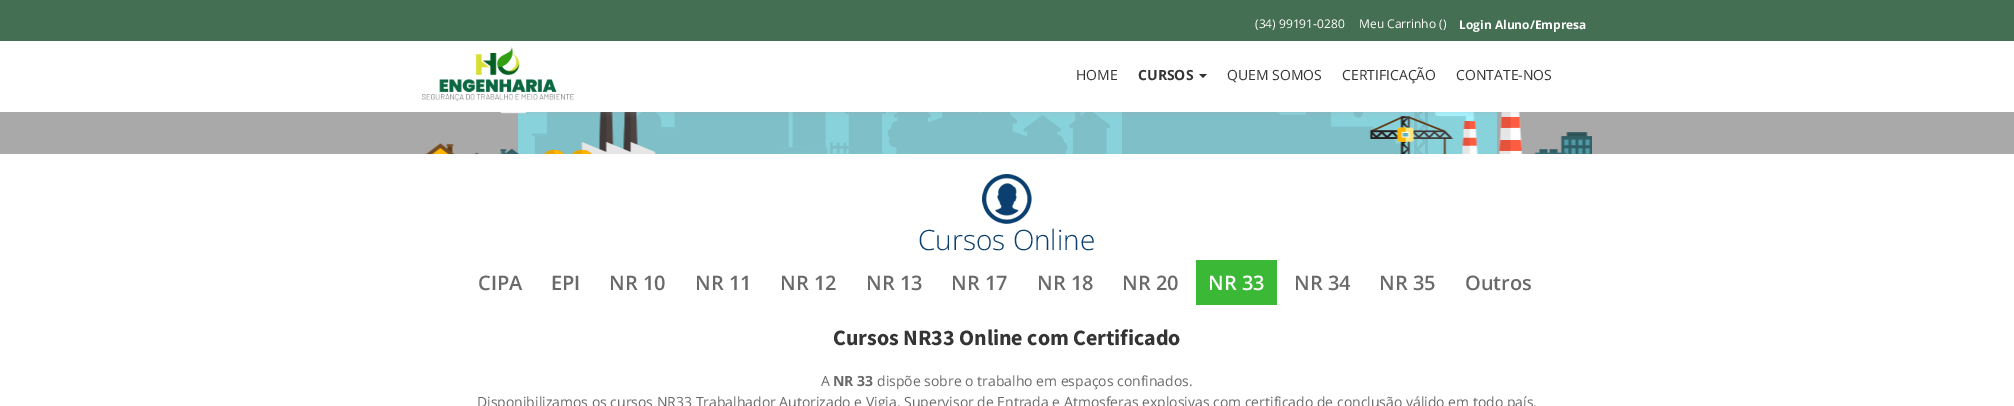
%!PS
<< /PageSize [2014 406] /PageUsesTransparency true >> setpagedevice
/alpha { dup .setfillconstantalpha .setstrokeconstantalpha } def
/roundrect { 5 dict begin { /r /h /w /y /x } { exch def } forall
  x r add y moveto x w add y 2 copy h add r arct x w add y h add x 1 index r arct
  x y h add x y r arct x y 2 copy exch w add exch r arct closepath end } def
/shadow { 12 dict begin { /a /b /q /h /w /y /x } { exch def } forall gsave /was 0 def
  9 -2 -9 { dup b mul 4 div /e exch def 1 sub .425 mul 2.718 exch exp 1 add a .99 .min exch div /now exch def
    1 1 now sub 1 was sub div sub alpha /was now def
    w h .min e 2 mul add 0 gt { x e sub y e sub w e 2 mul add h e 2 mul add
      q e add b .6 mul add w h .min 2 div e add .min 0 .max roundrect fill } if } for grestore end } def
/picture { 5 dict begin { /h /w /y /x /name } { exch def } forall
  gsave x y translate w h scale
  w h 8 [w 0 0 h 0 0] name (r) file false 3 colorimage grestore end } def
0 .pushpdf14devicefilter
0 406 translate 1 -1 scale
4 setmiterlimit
1 setgray
0 0 2014 406 rectfill
0.267 0.435 0.322 setrgbcolor
0 0 2014 41 rectfill
/OpenSans-Regular [12 0 0 -12 0 0] selectfont
1 setgray
1255 28 moveto (\(34\) 99191-0280) show
1359 28 moveto (Meu Carrinho \(\)) show
/OpenSans-Bold [12 0 0 -12 0 0] selectfont
1459 29 moveto (Login Aluno/Empresa) show
0.663 setgray
0 112 2014 42 rectfill
(img2.rgb) 518 112 979 42 picture
(img3.rgb) 426 112 1166 42 picture
gsave
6 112 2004 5 rectclip
0.624 setgray
11 56 1994 51 0 5 1 shadow
grestore
(img1.rgb) 422 47 152 54 picture
/OpenSans-Regular [14 0 0 -14 0 0] selectfont
0.204 setgray
1076 80 moveto (HOME) show
/OpenSans-Bold [14 0 0 -14 0 0] selectfont
1138 80 moveto (CURSOS) show
0.2 setgray
newpath 1199 74 moveto 1207 74 lineto 1203 78 lineto closepath fill
/OpenSans-Regular [14 0 0 -14 0 0] selectfont
0.204 setgray
1227 80 moveto (QUEM SOMOS) show
1342 80 moveto (CERTIFICAÇÃO) show
1456 80 moveto (CONTATE-NOS) show
(img4.rgb) 982 174 50 50 picture
/OpenSans-Light [28 0 0 -28 0 0] selectfont
0.043 0.247 0.435 setrgbcolor
918 250 moveto (Cursos Online) show
/OpenSans-SemiBold [20 0 0 -20 0 0] selectfont
0.412 setgray
478 290 moveto (CIPA) show
551 290 moveto (EPI) show
609 290 moveto (NR 10) show
695 290 moveto (NR 11) show
780 290 moveto (NR 12) show
866 290 moveto (NR 13) show
951 290 moveto (NR 17) show
1037 290 moveto (NR 18) show
1122 290 moveto (NR 20) show
0.231 0.722 0.212 setrgbcolor
1196 260 81 45 rectfill
1 setgray
1208 290 moveto (NR 33) show
0.412 setgray
1294 290 moveto (NR 34) show
1379 290 moveto (NR 35) show
1465 290 moveto (Outros) show
/SourceSansPro-Bold [22 0 0 -22 0 0] selectfont
0.204 setgray
833 345 moveto (Cursos NR33 Online com Certificado) show
/OpenSans-Regular [14 0 0 -14 0 0] selectfont
0.412 setgray
821 386 moveto (A) show
/OpenSans-Bold [14 0 0 -14 0 0] selectfont
833 386 moveto (NR 33) show
/OpenSans-Regular [14 0 0 -14 0 0] selectfont
877 386 moveto (dispõe sobre o trabalho em espaços confinados.) show
477 407 moveto (Disponibilizamos os cursos NR33 Trabalhador Autorizado e Vigia, Supervisor de Entrada e Atmosferas explosivas com certificado de conclusão válido em todo país.) show
.poppdf14devicefilter showpage
